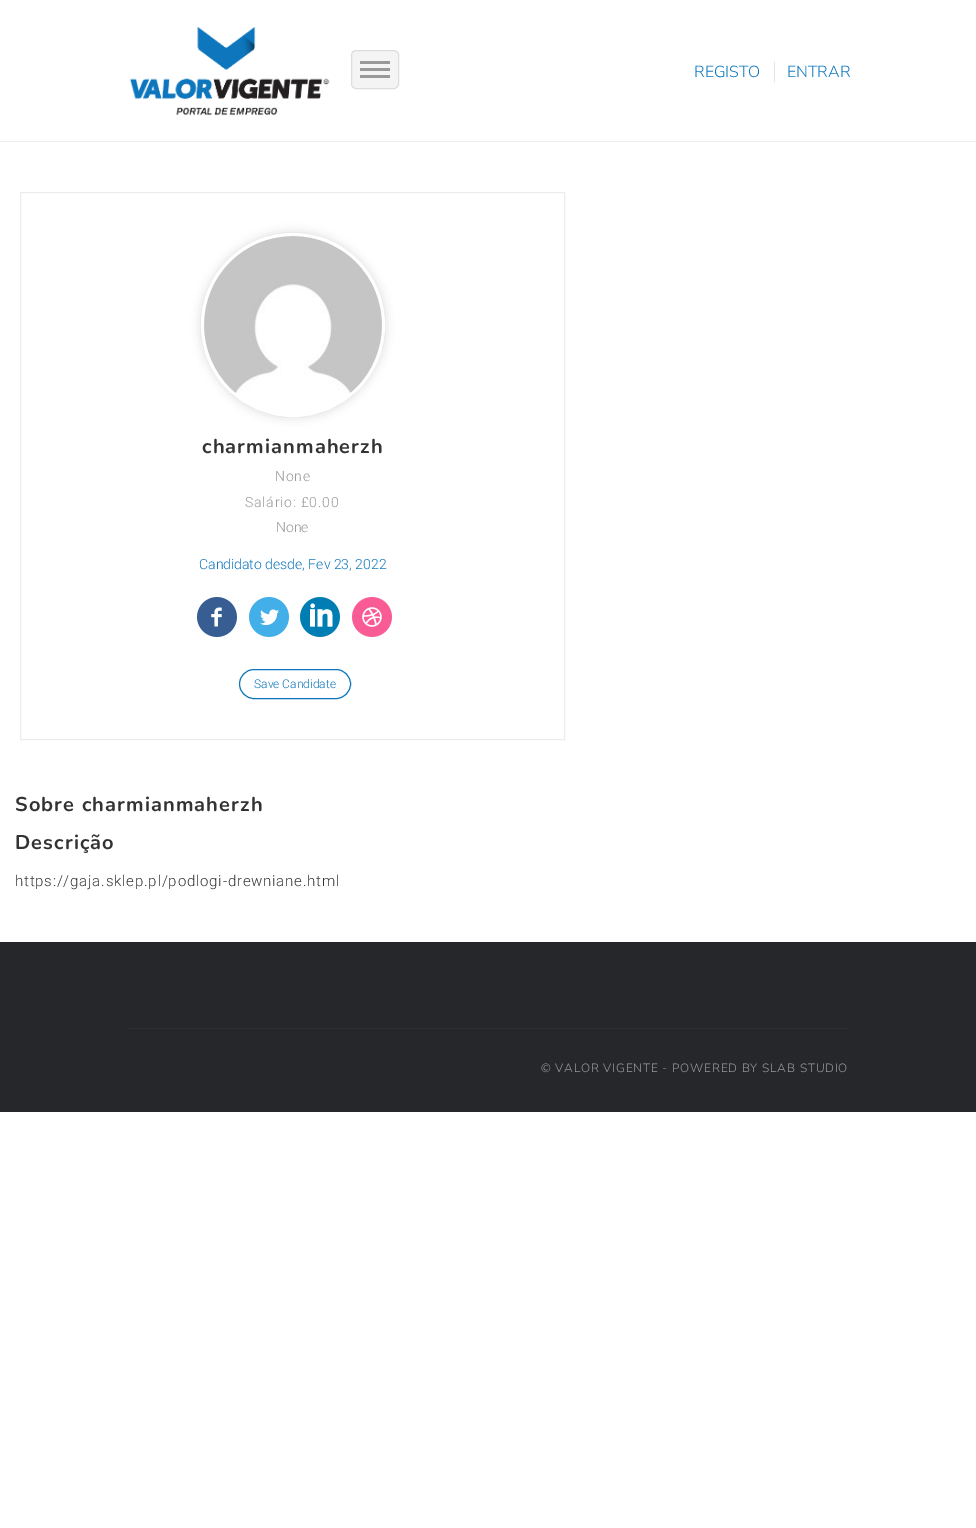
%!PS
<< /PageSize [976 1528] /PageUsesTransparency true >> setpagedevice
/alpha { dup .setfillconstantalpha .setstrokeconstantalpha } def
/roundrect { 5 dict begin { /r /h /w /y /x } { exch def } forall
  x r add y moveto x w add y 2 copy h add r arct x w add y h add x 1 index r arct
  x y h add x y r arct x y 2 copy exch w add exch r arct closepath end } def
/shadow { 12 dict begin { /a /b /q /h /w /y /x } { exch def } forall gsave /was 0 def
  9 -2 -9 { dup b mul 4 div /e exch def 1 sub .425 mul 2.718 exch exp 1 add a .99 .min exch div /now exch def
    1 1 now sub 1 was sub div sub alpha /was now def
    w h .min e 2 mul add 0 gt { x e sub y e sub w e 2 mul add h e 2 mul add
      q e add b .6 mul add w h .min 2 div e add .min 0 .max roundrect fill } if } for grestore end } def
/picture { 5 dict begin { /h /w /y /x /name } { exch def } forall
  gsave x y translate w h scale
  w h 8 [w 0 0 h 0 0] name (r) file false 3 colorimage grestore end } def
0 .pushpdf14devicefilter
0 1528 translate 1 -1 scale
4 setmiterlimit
1 setgray
0 0 976 1528 rectfill
0.933 setgray
0 141 976 1 rectfill
(img1.rgb) 129 27 201 89 picture
0.957 setgray
351.5 50.5 47 38 4.5 roundrect gsave fill grestore
0.867 setgray
stroke
0.6 setgray
360 61 30 3 rectfill
360 68 30 3 rectfill
360 75 30 3 rectfill
/NunitoSans-ExtraLight [16 0 0 -16 0 0] selectfont
0.055 0.463 0.737 setrgbcolor
694 77 moveto (REGISTO) show
0.898 setgray
774 62 1 20 rectfill
0.055 0.463 0.737 setrgbcolor
787 77 moveto (ENTRAR) show
0.925 setgray
20.5 192.5 544 547 rectstroke
gsave
newpath 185 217 moveto 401 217 lineto 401 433 lineto 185 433 lineto closepath 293 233 moveto 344 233 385 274 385 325 curveto 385 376 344 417 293 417 curveto 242 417 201 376 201 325 curveto 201 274 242 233 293 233 curveto closepath eoclip newpath
0 setgray
201 233 184 184 92 5 0.15 shadow
grestore
1 setgray
3 setlinewidth
newpath 293 325 90.5 0 360 arc closepath stroke
(img2.rgb) 204 236 178 157 picture
/Nunito-Bold [20 0 0 -20 0 0] selectfont
0.2 setgray
202 453 moveto 1.1 0 (charmianmaherzh) ashow
/Roboto-Light [14 0 0 -14 0 0] selectfont
0.6 setgray
275 481 moveto 0.8 0 (None) ashow
245 507 moveto 0.8 0 (Salário: £0.00) ashow
276 532 moveto (None) show
0.055 0.463 0.737 setrgbcolor
199 569 moveto (Candidato desde, Fev 23, 2022) show
(img3.rgb) 197 597 40 40 picture
(img4.rgb) 249 597 40 40 picture
(img5.rgb) 300 597 40 40 picture
(img6.rgb) 352 597 40 40 picture
1 setlinewidth
239.5 669.5 111 29 14.5 roundrect stroke
/Roboto-Light [12 0 0 -12 0 0] selectfont
254 688 moveto (Save Candidate) show
/Nunito-Bold [20 0 0 -20 0 0] selectfont
0.2 setgray
15 811 moveto 1.1 0 (Sobre charmianmaherzh) ashow
15 849 moveto 1.1 0 (Descrição) ashow
/Roboto-Light [15 0 0 -15 0 0] selectfont
15 886 moveto 0.8 0 (https://gaja.sklep.pl/podlogi-drewniane.html) ashow
0.149 0.153 0.169 setrgbcolor
0 942 976 170 rectfill
0.18 setgray
128 1028 720 1 rectfill
/NunitoSans-ExtraLight [12 0 0 -12 0 0] selectfont
0.6 setgray
541 1072 moveto 0.8 0 (© VALOR VIGENTE - POWERED BY SLAB STUDIO) ashow
.poppdf14devicefilter showpage
